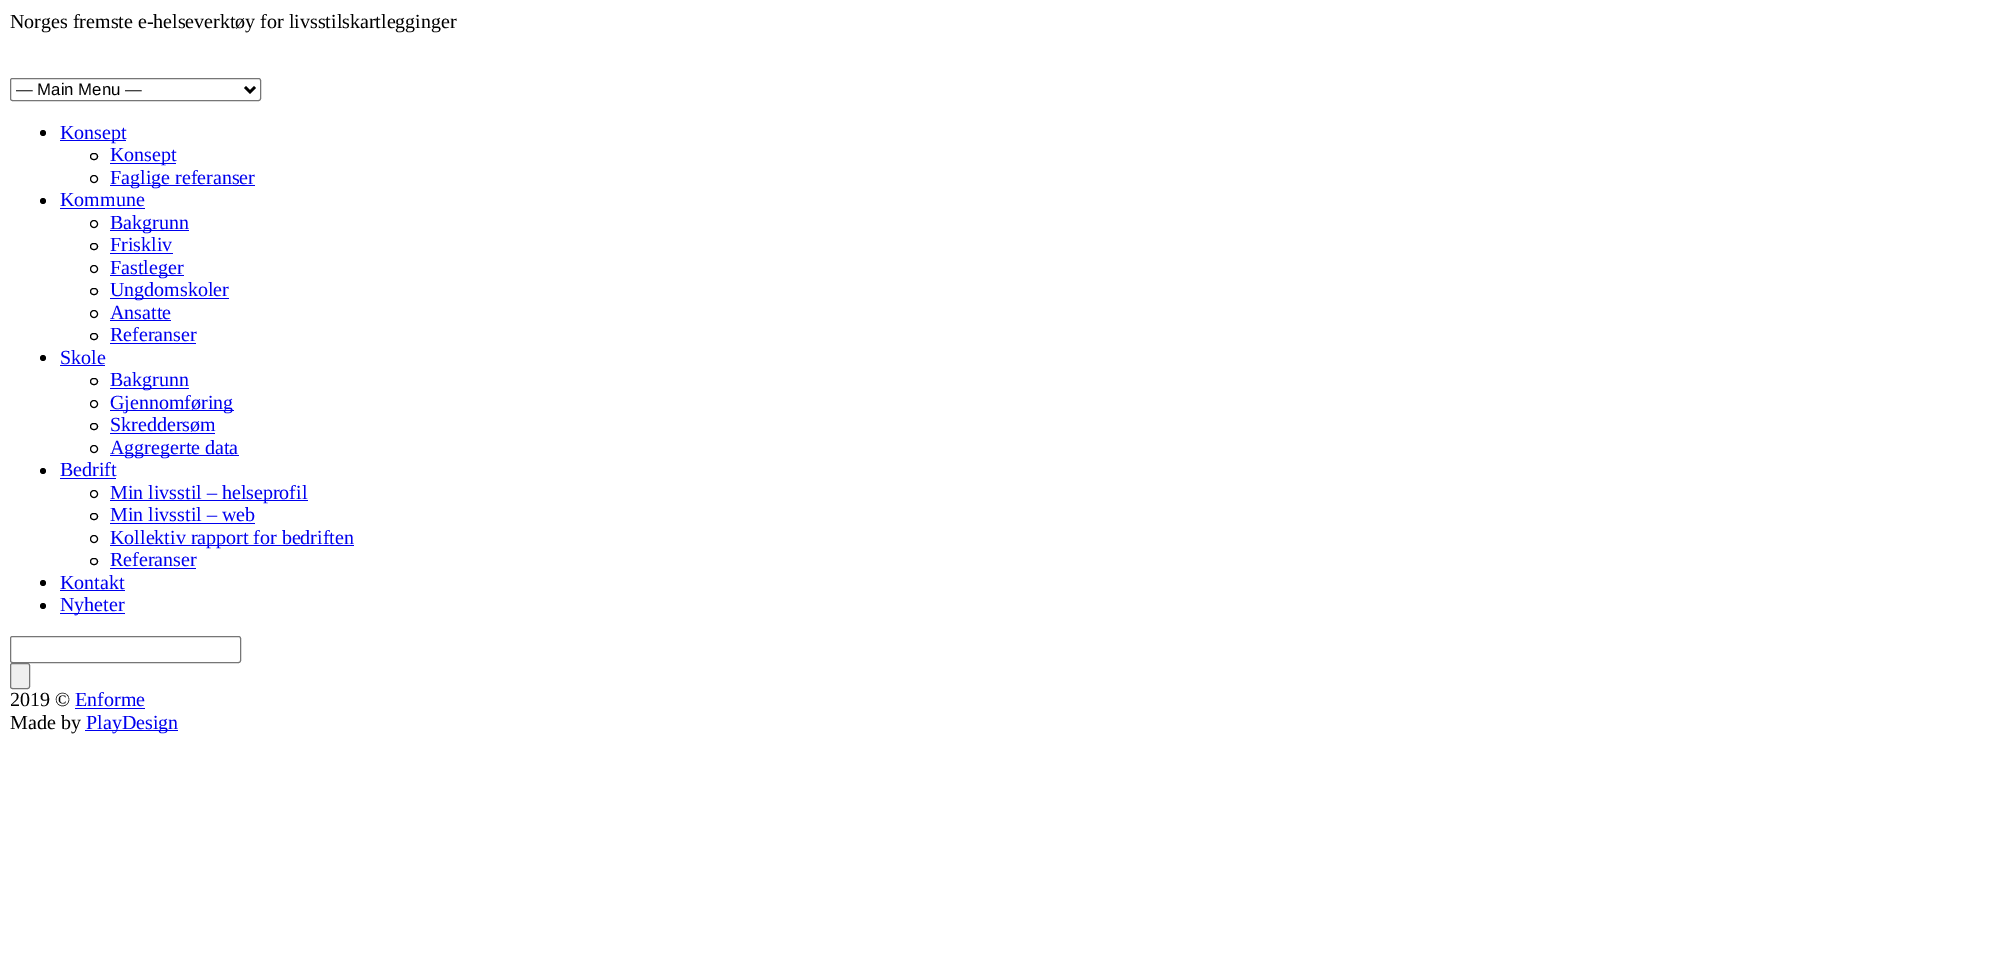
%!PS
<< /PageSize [2011 973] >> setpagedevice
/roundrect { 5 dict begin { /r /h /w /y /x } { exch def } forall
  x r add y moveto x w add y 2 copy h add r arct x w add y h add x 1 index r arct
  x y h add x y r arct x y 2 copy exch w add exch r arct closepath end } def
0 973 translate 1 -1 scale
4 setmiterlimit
1 setgray
0 0 2011 973 rectfill
/LiberationSerif-Regular [20 0 0 -20 0 0] selectfont
0 setgray
10 28 moveto (Norges fremste e-helseverktøy for livsstilskartlegginger) show
0.463 setgray
10.5 78.5 250 22 2 roundrect stroke
0 setgray
2.5 setlinewidth
newpath 245 87 moveto 250 92 lineto 255 87 lineto stroke
/LiberationSans-Regular [16.75 0 0 -16.75 0 0] selectfont
16 95 moveto (— Main Menu —) show
newpath 43 133 3 0 360 arc closepath fill
0 0 0.933 setrgbcolor
60 140 66 1 rectfill
/LiberationSerif-Regular [20 0 0 -20 0 0] selectfont
60 139 moveto (Konsept) show
0 setgray
1 setlinewidth
90.5 153.5 7 6 3 roundrect stroke
0 0 0.933 setrgbcolor
110 163 66 1 rectfill
110 161 moveto (Konsept) show
0 setgray
newpath 94 179 3.5 0 360 arc closepath stroke
0 0 0.933 setrgbcolor
110 185 145 1 rectfill
110 184 moveto (Faglige referanser) show
0 setgray
newpath 43 201 3 0 360 arc closepath fill
0 0 0.933 setrgbcolor
60 206 moveto (Kommune) show
60 208 85 1 rectfill
0 setgray
newpath 94 224 3.5 0 360 arc closepath stroke
0 0 0.933 setrgbcolor
110 230 79 1 rectfill
110 229 moveto (Bakgrunn) show
0 setgray
90.5 243.5 7 6 3 roundrect stroke
0 0 0.933 setrgbcolor
110 251 moveto (Friskliv) show
110 253 63 1 rectfill
0 setgray
newpath 94 269 3.5 0 360 arc closepath stroke
0 0 0.933 setrgbcolor
110 275 74 1 rectfill
110 274 moveto (Fastleger) show
0 setgray
90.5 288.5 7 6 3 roundrect stroke
0 0 0.933 setrgbcolor
110 298 119 1 rectfill
110 296 moveto (Ungdomskoler) show
0 setgray
newpath 94 314 3.5 0 360 arc closepath stroke
0 0 0.933 setrgbcolor
110 319 moveto (Ansatte) show
110 320 61 1 rectfill
0 setgray
90.5 333.5 7 6 3 roundrect stroke
0 0 0.933 setrgbcolor
110 341 moveto (Referanser) show
110 343 86 1 rectfill
0 setgray
newpath 43 358 3 0 360 arc closepath fill
0 0 0.933 setrgbcolor
60 364 moveto (Skole) show
60 365 45 1 rectfill
0 setgray
90.5 378.5 7 6 3 roundrect stroke
0 0 0.933 setrgbcolor
110 388 79 1 rectfill
110 386 moveto (Bakgrunn) show
0 setgray
newpath 94 404 3.5 0 360 arc closepath stroke
0 0 0.933 setrgbcolor
110 410 124 1 rectfill
110 409 moveto (Gjennomføring) show
0 setgray
90.5 423.5 7 6 3 roundrect stroke
0 0 0.933 setrgbcolor
110 431 moveto (Skreddersøm) show
110 433 105 1 rectfill
0 setgray
newpath 94 449 3.5 0 360 arc closepath stroke
0 0 0.933 setrgbcolor
110 455 129 1 rectfill
110 454 moveto (Aggregerte data) show
0 setgray
newpath 43 471 3 0 360 arc closepath fill
0 0 0.933 setrgbcolor
60 476 moveto (Bedrift) show
60 478 56 1 rectfill
0 setgray
newpath 94 494 3.5 0 360 arc closepath stroke
0 0 0.933 setrgbcolor
110 500 198 1 rectfill
110 499 moveto (Min livsstil – helseprofil) show
0 setgray
90.5 513.5 7 6 3 roundrect stroke
0 0 0.933 setrgbcolor
110 521 moveto (Min livsstil – web) show
110 523 145 1 rectfill
0 setgray
newpath 94 539 3.5 0 360 arc closepath stroke
0 0 0.933 setrgbcolor
110 545 244 1 rectfill
110 544 moveto (Kollektiv rapport for bedriften) show
0 setgray
90.5 558.5 7 6 3 roundrect stroke
0 0 0.933 setrgbcolor
110 566 moveto (Referanser) show
110 568 86 1 rectfill
0 setgray
newpath 43 583 3 0 360 arc closepath fill
0 0 0.933 setrgbcolor
60 589 moveto (Kontakt) show
60 590 65 1 rectfill
0 setgray
newpath 43 606 3 0 360 arc closepath fill
0 0 0.933 setrgbcolor
60 613 65 1 rectfill
60 611 moveto (Nyheter) show
0.463 setgray
10.5 636.5 230 26 2 roundrect stroke
0.937 setgray
10.5 663.5 19 25 2 roundrect gsave fill grestore
0.463 setgray
stroke
0 setgray
10 706 moveto (2019 ©) show
0 0 0.933 setrgbcolor
75 706 moveto (Enforme) show
75 708 70 1 rectfill
0 setgray
10 729 moveto (Made by) show
0 0 0.933 setrgbcolor
85 730 93 1 rectfill
86 729 moveto (PlayDesign) show
showpage
